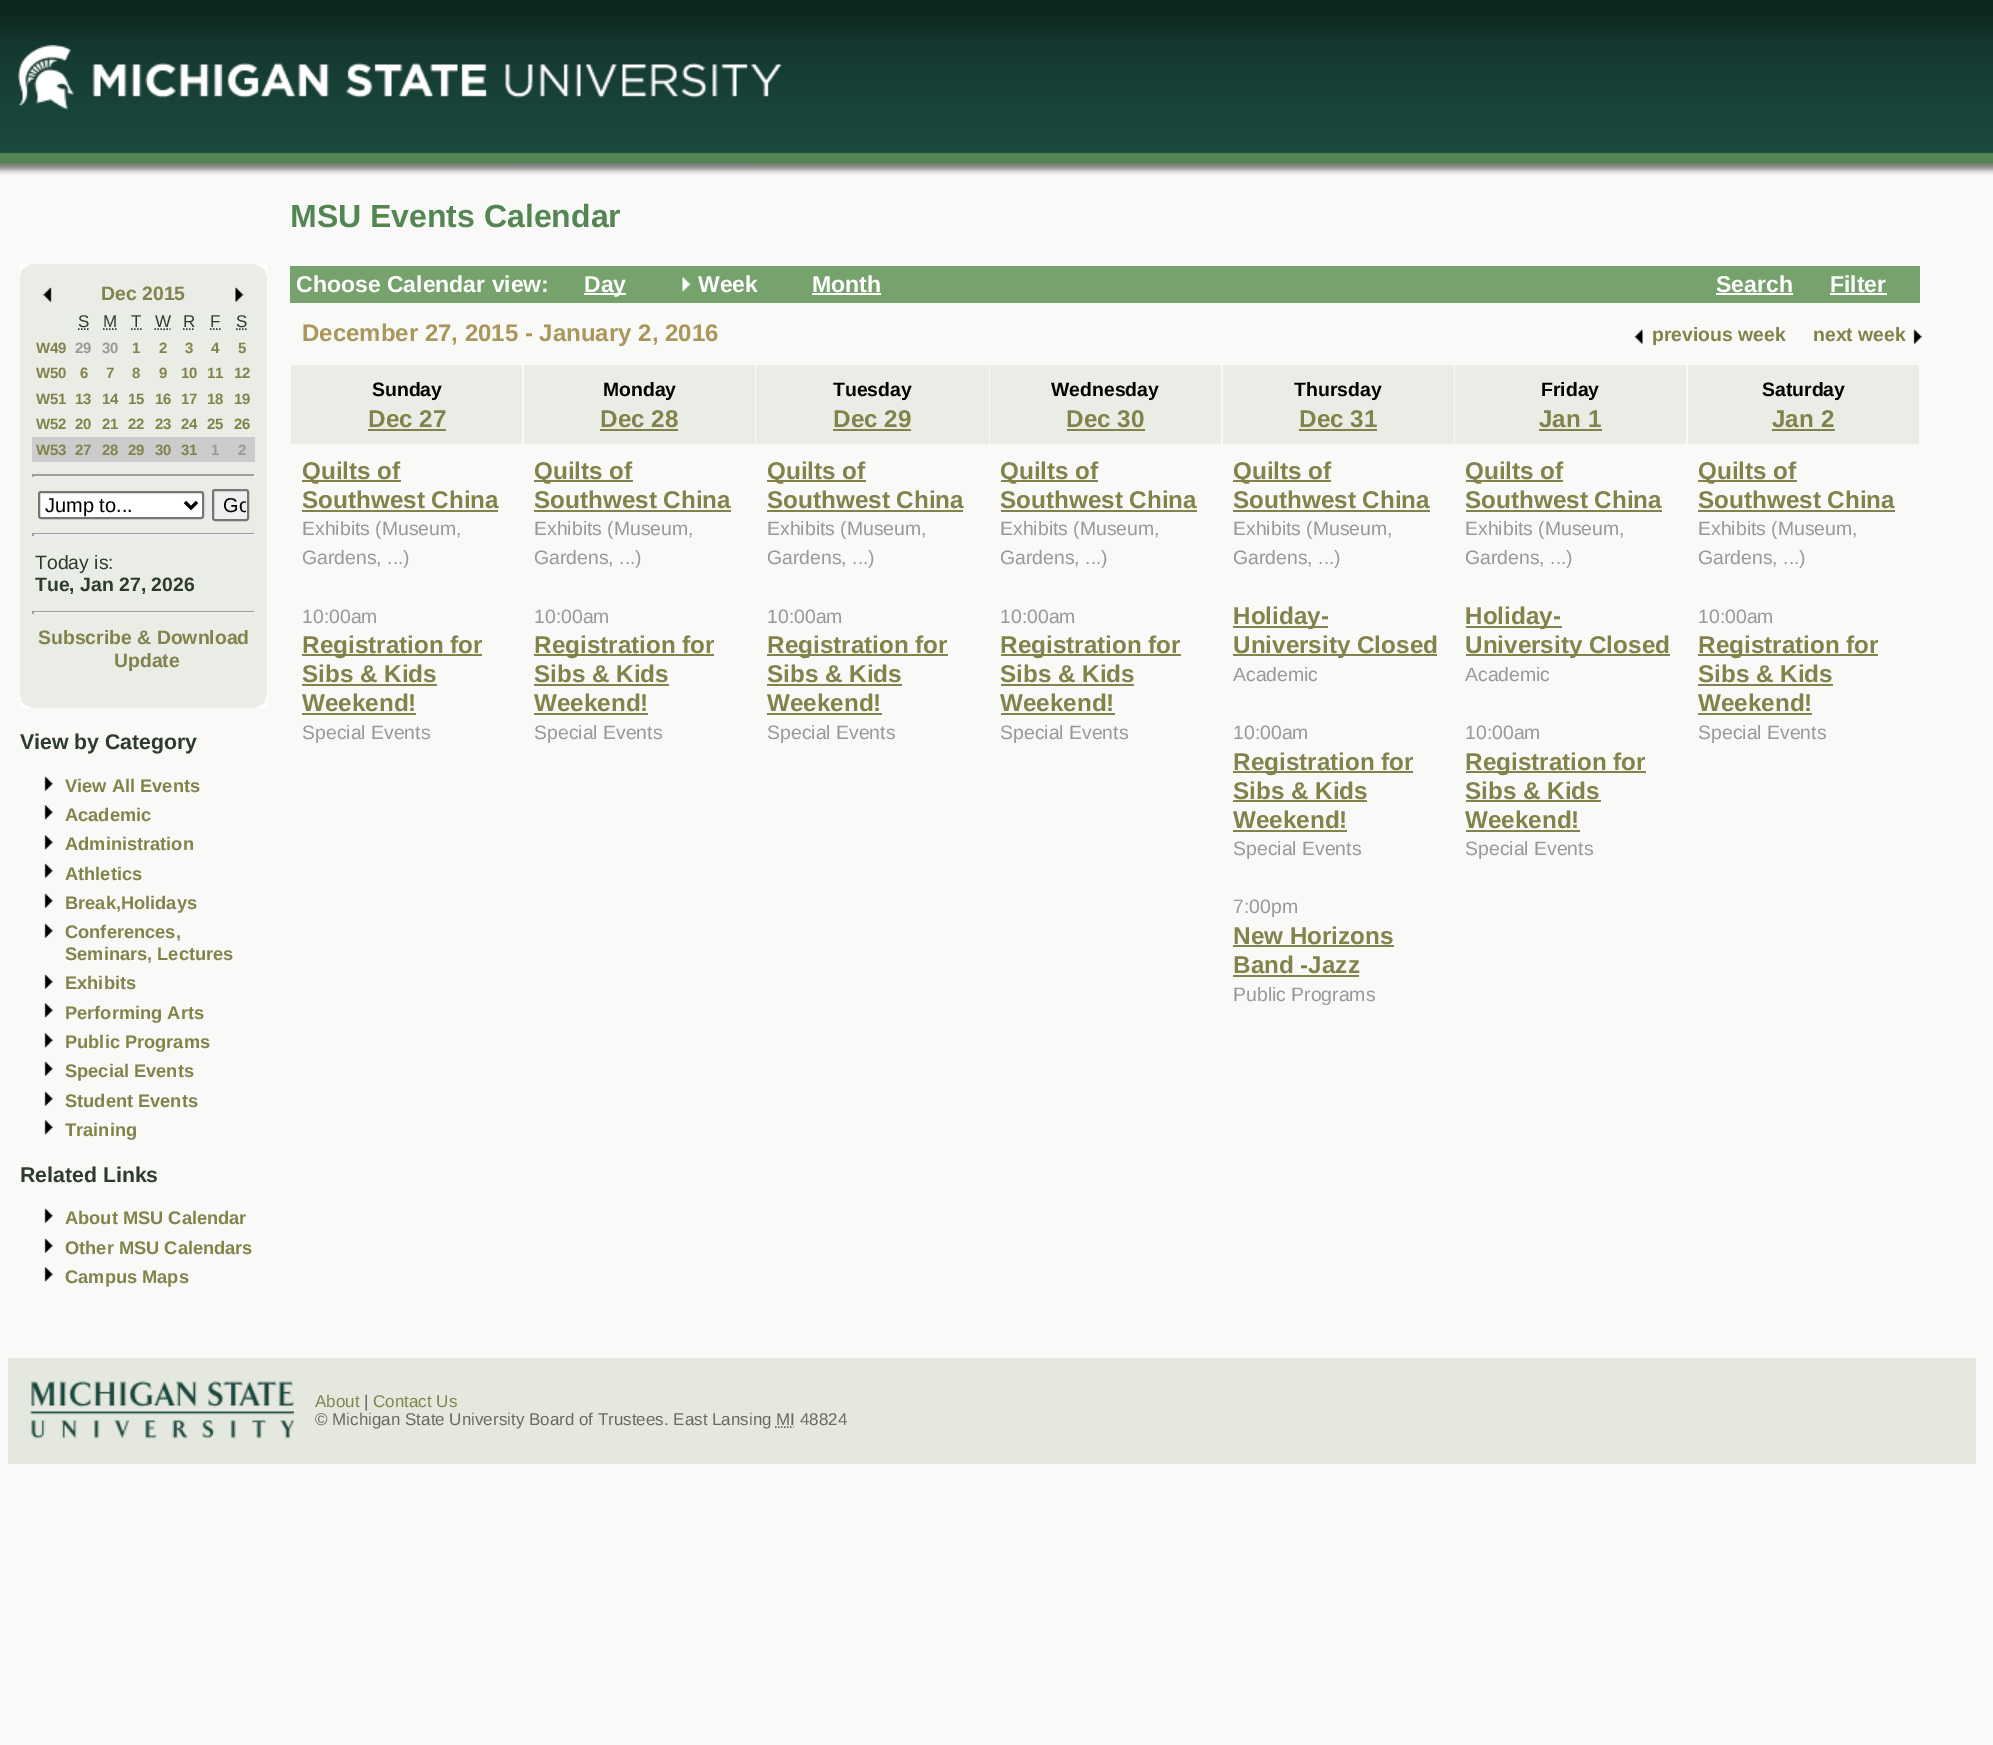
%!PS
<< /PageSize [1993 1745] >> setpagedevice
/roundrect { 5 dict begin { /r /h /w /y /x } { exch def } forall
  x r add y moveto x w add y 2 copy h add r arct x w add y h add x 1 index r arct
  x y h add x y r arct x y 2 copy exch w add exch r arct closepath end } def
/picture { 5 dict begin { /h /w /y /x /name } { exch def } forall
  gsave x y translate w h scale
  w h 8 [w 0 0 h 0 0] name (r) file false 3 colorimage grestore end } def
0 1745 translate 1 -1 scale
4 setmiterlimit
0.976 0.976 0.969 setrgbcolor
0 0 1993 1745 rectfill
(img1.rgb) 0 0 1993 175 picture
(img2.rgb) 18 45 764 65 picture
0.918 0.929 0.902 setrgbcolor
20 264 12 444 rectfill
(img3.rgb) 19 264 12 11 picture
32 264 223 444 rectfill
255 264 12 444 rectfill
(img4.rgb) 256 264 11 11 picture
(img5.rgb) 43 287 9 15 picture
/LiberationSans-Bold [19.4 0 0 -19.4 0 0] selectfont
0.51 0.51 0.294 setrgbcolor
101 300 moveto (Dec 2015) show
(img6.rgb) 235 287 9 15 picture
/LiberationSans-Regular [17 0 0 -17 0 0] selectfont
0.176 0.235 0.176 setrgbcolor
78 327 moveto (S) show
1.5 setlinewidth
[1.5 1.5] 0 setdash
newpath 78 329 moveto 89 329 lineto stroke
103 327 moveto (M) show
newpath 103 329 moveto 117 329 lineto stroke
131 327 moveto (T) show
[] 0 setdash
newpath 131 329 moveto 132.5 329 lineto 134 329 moveto 135.5 329 lineto 137 329 moveto 138.5 329 lineto 140 329 moveto 141.5 329 lineto stroke
155 327 moveto (W) show
[1.5 1.5] 0 setdash
newpath 154.5 329 moveto 170.5 329 lineto stroke
183 327 moveto (R) show
newpath 183 329 moveto 195 329 lineto stroke
210 327 moveto (F) show
[] 0 setdash
newpath 210 329 moveto 211.5 329 lineto 213 329 moveto 214.5 329 lineto 216 329 moveto 217.5 329 lineto 219 329 moveto 220.5 329 lineto stroke
236 327 moveto (S) show
[1.5 1.5] 0 setdash
newpath 236 329 moveto 247.5 329 lineto stroke
/LiberationSans-Bold [15 0 0 -15 0 0] selectfont
0.51 0.51 0.294 setrgbcolor
36 353 moveto (W49) show
0.6 setgray
75 353 moveto (29) show
102 353 moveto (30) show
0.51 0.51 0.294 setrgbcolor
132 353 moveto (1) show
159 353 moveto (2) show
185 353 moveto (3) show
211 353 moveto (4) show
238 353 moveto (5) show
36 378 moveto (W50) show
80 378 moveto (6) show
106 378 moveto (7) show
132 378 moveto (8) show
159 378 moveto (9) show
181 378 moveto (10) show
207 378 moveto (11) show
234 378 moveto (12) show
36 404 moveto (W51) show
75 404 moveto (13) show
102 404 moveto (14) show
128 404 moveto (15) show
155 404 moveto (16) show
181 404 moveto (17) show
207 404 moveto (18) show
234 404 moveto (19) show
36 429 moveto (W52) show
75 429 moveto (20) show
102 429 moveto (21) show
128 429 moveto (22) show
155 429 moveto (23) show
181 429 moveto (24) show
207 429 moveto (25) show
234 429 moveto (26) show
0.8 setgray
32 437 223 25 rectfill
0.51 0.51 0.294 setrgbcolor
36 455 moveto (W53) show
75 455 moveto (27) show
102 455 moveto (28) show
128 455 moveto (29) show
155 455 moveto (30) show
181 455 moveto (31) show
0.6 setgray
211 455 moveto (1) show
238 455 moveto (2) show
0.624 setgray
32 474 223 2 rectfill
0.933 setgray
254 474 2 3 rectfill
32 476 223 2 rectfill
0.624 setgray
32 474 2 3 rectfill
1 setgray
39 492 164 26 2 roundrect gsave fill grestore
0.463 setgray
2 setlinewidth
[] 0 setdash
stroke
0 setgray
3 setlinewidth
newpath 185 502 moveto 191 508 lineto 197 502 lineto stroke
/LiberationSans-Regular [20 0 0 -20 0 0] selectfont
45 512 moveto (Jump to...) show
0.937 setgray
213 490 35 30 2 roundrect gsave fill grestore
0.463 setgray
2 setlinewidth
stroke
gsave
215 492 31 26 rectclip
0 setgray
223 512 moveto (Go) show
grestore
0.624 setgray
32 533 223 1 rectfill
0.933 setgray
254 533 2 3 rectfill
32 534 223 2 rectfill
0.624 setgray
32 533 2 3 rectfill
/LiberationSans-Regular [19.4 0 0 -19.4 0 0] selectfont
0.176 0.235 0.176 setrgbcolor
35 569 moveto (Today is:) show
/LiberationSans-Bold [19.4 0 0 -19.4 0 0] selectfont
35 591 moveto (Tue, Jan 27, 2026) show
0.624 setgray
32 611 223 1 rectfill
0.933 setgray
254 611 2 3 rectfill
32 612 223 2 rectfill
0.624 setgray
32 611 2 3 rectfill
0.51 0.51 0.294 setrgbcolor
38 644 moveto (Subscribe & Download) show
114 667 moveto (Update) show
(img7.rgb) 19 697 12 11 picture
(img8.rgb) 256 697 11 11 picture
/LiberationSans-Bold [21.25 0 0 -21.25 0 0] selectfont
0.176 0.235 0.176 setrgbcolor
20 749 moveto (View by Category) show
(img9.rgb) 44 776 9 15 picture
/LiberationSans-Bold [18.25 0 0 -18.25 0 0] selectfont
0.51 0.51 0.294 setrgbcolor
65 792 moveto (View All Events) show
(img10.rgb) 44 805 9 15 picture
65 821 moveto (Academic) show
(img10.rgb) 44 835 9 15 picture
65 850 moveto (Administration) show
(img9.rgb) 44 863 9 15 picture
65 880 moveto (Athletics) show
(img9.rgb) 44 893 9 15 picture
65 909 moveto (Break,Holidays) show
(img9.rgb) 44 923 9 15 picture
65 938 moveto (Conferences,) show
65 960 moveto (Seminars, Lectures) show
(img9.rgb) 44 974 9 15 picture
65 989 moveto (Exhibits) show
(img10.rgb) 44 1003 9 15 picture
65 1019 moveto (Performing Arts) show
(img10.rgb) 44 1033 9 15 picture
65 1048 moveto (Public Programs) show
(img9.rgb) 44 1061 9 15 picture
65 1077 moveto (Special Events) show
(img9.rgb) 44 1091 9 15 picture
65 1107 moveto (Student Events) show
(img10.rgb) 44 1120 9 15 picture
65 1136 moveto (Training) show
/LiberationSans-Bold [21.25 0 0 -21.25 0 0] selectfont
0.176 0.235 0.176 setrgbcolor
20 1182 moveto (Related Links) show
(img9.rgb) 44 1208 9 15 picture
/LiberationSans-Bold [18.25 0 0 -18.25 0 0] selectfont
0.51 0.51 0.294 setrgbcolor
65 1224 moveto (About MSU Calendar) show
(img9.rgb) 44 1238 9 15 picture
65 1254 moveto (Other MSU Calendars) show
(img10.rgb) 44 1267 9 15 picture
65 1283 moveto (Campus Maps) show
/LiberationSans-Bold [32 0 0 -32 0 0] selectfont
0.329 0.525 0.329 setrgbcolor
290 227 moveto (MSU Events Calendar) show
0.459 0.639 0.42 setrgbcolor
290 266 1630 37 rectfill
/LiberationSans-Bold [23 0 0 -23 0 0] selectfont
1 setgray
296 292 moveto (Choose Calendar view:) show
584 293 42 2 rectfill
584 292 moveto (Day) show
(img11.rgb) 682 277 9 15 picture
698 292 moveto (Week) show
812 292 moveto (Month) show
812 293 69 2 rectfill
1716 292 moveto (Search) show
1716 293 77 2 rectfill
1830 292 moveto (Filter) show
1830 293 57 2 rectfill
/LiberationSans-Bold [24 0 0 -24 0 0] selectfont
0.667 0.592 0.357 setrgbcolor
302 341 moveto (December 27, 2015 - January 2, 2016) show
(img12.rgb) 1634 329 9 15 picture
/LiberationSans-Bold [19.4 0 0 -19.4 0 0] selectfont
0.51 0.51 0.294 setrgbcolor
1652 341 moveto (previous week) show
1813 341 moveto (next week) show
(img13.rgb) 1913 329 9 15 picture
0.918 0.929 0.902 setrgbcolor
291 365 231 79 rectfill
0 setgray
372 396 moveto (Sunday) show
/LiberationSans-Bold [24.25 0 0 -24.25 0 0] selectfont
0.51 0.51 0.294 setrgbcolor
368 427 moveto (Dec 27) show
368 429 78 2 rectfill
0.918 0.929 0.902 setrgbcolor
524 365 231 79 rectfill
/LiberationSans-Bold [19.4 0 0 -19.4 0 0] selectfont
0 setgray
603 396 moveto (Monday) show
/LiberationSans-Bold [24.25 0 0 -24.25 0 0] selectfont
0.51 0.51 0.294 setrgbcolor
600 427 moveto (Dec 28) show
600 429 78 2 rectfill
0.918 0.929 0.902 setrgbcolor
756 365 233 79 rectfill
/LiberationSans-Bold [19.4 0 0 -19.4 0 0] selectfont
0 setgray
833 396 moveto (Tuesday) show
/LiberationSans-Bold [24.25 0 0 -24.25 0 0] selectfont
0.51 0.51 0.294 setrgbcolor
833 427 moveto (Dec 29) show
833 429 78 2 rectfill
0.918 0.929 0.902 setrgbcolor
990 365 231 79 rectfill
/LiberationSans-Bold [19.4 0 0 -19.4 0 0] selectfont
0 setgray
1051 396 moveto (Wednesday) show
/LiberationSans-Bold [24.25 0 0 -24.25 0 0] selectfont
0.51 0.51 0.294 setrgbcolor
1066 427 moveto (Dec 30) show
1067 429 78 2 rectfill
0.918 0.929 0.902 setrgbcolor
1223 365 231 79 rectfill
/LiberationSans-Bold [19.4 0 0 -19.4 0 0] selectfont
0 setgray
1294 396 moveto (Thursday) show
/LiberationSans-Bold [24.25 0 0 -24.25 0 0] selectfont
0.51 0.51 0.294 setrgbcolor
1299 427 moveto (Dec 31) show
1299 429 78 2 rectfill
0.918 0.929 0.902 setrgbcolor
1455 365 231 79 rectfill
/LiberationSans-Bold [19.4 0 0 -19.4 0 0] selectfont
0 setgray
1541 396 moveto (Friday) show
/LiberationSans-Bold [24.25 0 0 -24.25 0 0] selectfont
0.51 0.51 0.294 setrgbcolor
1539 427 moveto (Jan 1) show
1539 429 63 2 rectfill
0.918 0.929 0.902 setrgbcolor
1688 365 231 79 rectfill
/LiberationSans-Bold [19.4 0 0 -19.4 0 0] selectfont
0 setgray
1762 396 moveto (Saturday) show
/LiberationSans-Bold [24.25 0 0 -24.25 0 0] selectfont
0.51 0.51 0.294 setrgbcolor
1772 427 moveto (Jan 2) show
1772 429 63 2 rectfill
302 480 99 2 rectfill
302 479 moveto (Quilts of) show
302 508 moveto (Southwest China) show
302 510 196 2 rectfill
/LiberationSans-Regular [19.4 0 0 -19.4 0 0] selectfont
0.6 setgray
302 535 moveto (Exhibits \(Museum,) show
302 564 moveto (Gardens, ...\)) show
302 623 moveto (10:00am) show
0.51 0.51 0.294 setrgbcolor
302 654 180 2 rectfill
/LiberationSans-Bold [24.25 0 0 -24.25 0 0] selectfont
302 653 moveto (Registration for) show
302 682 moveto (Sibs & Kids) show
302 684 135 2 rectfill
302 711 moveto (Weekend!) show
302 713 114 2 rectfill
/LiberationSans-Regular [19.4 0 0 -19.4 0 0] selectfont
0.6 setgray
302 739 moveto (Special Events) show
0.51 0.51 0.294 setrgbcolor
534 480 99 2 rectfill
/LiberationSans-Bold [24.25 0 0 -24.25 0 0] selectfont
534 479 moveto (Quilts of) show
534 508 moveto (Southwest China) show
534 510 197 2 rectfill
/LiberationSans-Regular [19.4 0 0 -19.4 0 0] selectfont
0.6 setgray
534 535 moveto (Exhibits \(Museum,) show
534 564 moveto (Gardens, ...\)) show
534 623 moveto (10:00am) show
0.51 0.51 0.294 setrgbcolor
534 654 180 2 rectfill
/LiberationSans-Bold [24.25 0 0 -24.25 0 0] selectfont
534 653 moveto (Registration for) show
534 682 moveto (Sibs & Kids) show
534 684 135 2 rectfill
534 711 moveto (Weekend!) show
534 713 114 2 rectfill
/LiberationSans-Regular [19.4 0 0 -19.4 0 0] selectfont
0.6 setgray
534 739 moveto (Special Events) show
0.51 0.51 0.294 setrgbcolor
767 480 99 2 rectfill
/LiberationSans-Bold [24.25 0 0 -24.25 0 0] selectfont
767 479 moveto (Quilts of) show
767 508 moveto (Southwest China) show
767 510 196 2 rectfill
/LiberationSans-Regular [19.4 0 0 -19.4 0 0] selectfont
0.6 setgray
767 535 moveto (Exhibits \(Museum,) show
767 564 moveto (Gardens, ...\)) show
767 623 moveto (10:00am) show
0.51 0.51 0.294 setrgbcolor
767 654 181 2 rectfill
/LiberationSans-Bold [24.25 0 0 -24.25 0 0] selectfont
767 653 moveto (Registration for) show
767 682 moveto (Sibs & Kids) show
767 684 135 2 rectfill
767 711 moveto (Weekend!) show
767 713 115 2 rectfill
/LiberationSans-Regular [19.4 0 0 -19.4 0 0] selectfont
0.6 setgray
767 739 moveto (Special Events) show
0.51 0.51 0.294 setrgbcolor
1001 480 97 2 rectfill
/LiberationSans-Bold [24.25 0 0 -24.25 0 0] selectfont
1000 479 moveto (Quilts of) show
1000 508 moveto (Southwest China) show
1001 510 196 2 rectfill
/LiberationSans-Regular [19.4 0 0 -19.4 0 0] selectfont
0.6 setgray
1000 535 moveto (Exhibits \(Museum,) show
1000 564 moveto (Gardens, ...\)) show
1000 623 moveto (10:00am) show
0.51 0.51 0.294 setrgbcolor
1001 654 180 2 rectfill
/LiberationSans-Bold [24.25 0 0 -24.25 0 0] selectfont
1000 653 moveto (Registration for) show
1000 682 moveto (Sibs & Kids) show
1001 684 133 2 rectfill
1000 711 moveto (Weekend!) show
1001 713 114 2 rectfill
/LiberationSans-Regular [19.4 0 0 -19.4 0 0] selectfont
0.6 setgray
1000 739 moveto (Special Events) show
0.51 0.51 0.294 setrgbcolor
1233 480 98 2 rectfill
/LiberationSans-Bold [24.25 0 0 -24.25 0 0] selectfont
1233 479 moveto (Quilts of) show
1233 508 moveto (Southwest China) show
1233 510 197 2 rectfill
/LiberationSans-Regular [19.4 0 0 -19.4 0 0] selectfont
0.6 setgray
1233 535 moveto (Exhibits \(Museum,) show
1233 564 moveto (Gardens, ...\)) show
0.51 0.51 0.294 setrgbcolor
1233 626 95 2 rectfill
/LiberationSans-Bold [24.25 0 0 -24.25 0 0] selectfont
1233 624 moveto (Holiday-) show
1233 654 204 2 rectfill
1233 653 moveto (University Closed) show
/LiberationSans-Regular [19.4 0 0 -19.4 0 0] selectfont
0.6 setgray
1233 681 moveto (Academic) show
1233 739 moveto (10:00am) show
0.51 0.51 0.294 setrgbcolor
1233 771 180 2 rectfill
/LiberationSans-Bold [24.25 0 0 -24.25 0 0] selectfont
1233 770 moveto (Registration for) show
1233 799 moveto (Sibs & Kids) show
1233 800 134 2 rectfill
1233 828 moveto (Weekend!) show
1233 830 114 2 rectfill
/LiberationSans-Regular [19.4 0 0 -19.4 0 0] selectfont
0.6 setgray
1233 855 moveto (Special Events) show
1233 913 moveto (7:00pm) show
/LiberationSans-Bold [24.25 0 0 -24.25 0 0] selectfont
0.51 0.51 0.294 setrgbcolor
1233 944 moveto (New Horizons) show
1233 945 161 2 rectfill
1233 973 moveto (Band -Jazz) show
1233 975 126 2 rectfill
/LiberationSans-Regular [19.4 0 0 -19.4 0 0] selectfont
0.6 setgray
1233 1001 moveto (Public Programs) show
0.51 0.51 0.294 setrgbcolor
1466 480 97 2 rectfill
/LiberationSans-Bold [24.25 0 0 -24.25 0 0] selectfont
1465 479 moveto (Quilts of) show
1465 508 moveto (Southwest China) show
1466 510 196 2 rectfill
/LiberationSans-Regular [19.4 0 0 -19.4 0 0] selectfont
0.6 setgray
1465 535 moveto (Exhibits \(Museum,) show
1465 564 moveto (Gardens, ...\)) show
0.51 0.51 0.294 setrgbcolor
1466 626 96 2 rectfill
/LiberationSans-Bold [24.25 0 0 -24.25 0 0] selectfont
1465 624 moveto (Holiday-) show
1466 654 204 2 rectfill
1465 653 moveto (University Closed) show
/LiberationSans-Regular [19.4 0 0 -19.4 0 0] selectfont
0.6 setgray
1465 681 moveto (Academic) show
1465 739 moveto (10:00am) show
0.51 0.51 0.294 setrgbcolor
1466 771 180 2 rectfill
/LiberationSans-Bold [24.25 0 0 -24.25 0 0] selectfont
1465 770 moveto (Registration for) show
1465 799 moveto (Sibs & Kids) show
1466 800 135 2 rectfill
1465 828 moveto (Weekend!) show
1466 830 114 2 rectfill
/LiberationSans-Regular [19.4 0 0 -19.4 0 0] selectfont
0.6 setgray
1465 855 moveto (Special Events) show
0.51 0.51 0.294 setrgbcolor
1698 480 99 2 rectfill
/LiberationSans-Bold [24.25 0 0 -24.25 0 0] selectfont
1698 479 moveto (Quilts of) show
1698 508 moveto (Southwest China) show
1698 510 197 2 rectfill
/LiberationSans-Regular [19.4 0 0 -19.4 0 0] selectfont
0.6 setgray
1698 535 moveto (Exhibits \(Museum,) show
1698 564 moveto (Gardens, ...\)) show
1698 623 moveto (10:00am) show
0.51 0.51 0.294 setrgbcolor
1698 654 180 2 rectfill
/LiberationSans-Bold [24.25 0 0 -24.25 0 0] selectfont
1698 653 moveto (Registration for) show
1698 682 moveto (Sibs & Kids) show
1698 684 135 2 rectfill
1698 711 moveto (Weekend!) show
1698 713 114 2 rectfill
/LiberationSans-Regular [19.4 0 0 -19.4 0 0] selectfont
0.6 setgray
1698 739 moveto (Special Events) show
0.894 0.91 0.871 setrgbcolor
8 1358 1968 106 rectfill
(img14.rgb) 30 1381 264 58 picture
/LiberationSans-Regular [17 0 0 -17 0 0] selectfont
0.51 0.51 0.294 setrgbcolor
315 1407 moveto (About) show
0.408 0.412 0.388 setrgbcolor
364 1407 moveto (|) show
0.51 0.51 0.294 setrgbcolor
373 1407 moveto (Contact Us) show
0.408 0.412 0.388 setrgbcolor
315 1425 moveto (© Michigan State University Board of Trustees. East Lansing MI 48824) show
1.5 setlinewidth
[1.5 1.5] 0 setdash
newpath 775 1427 moveto 793.5 1427 lineto stroke
showpage
